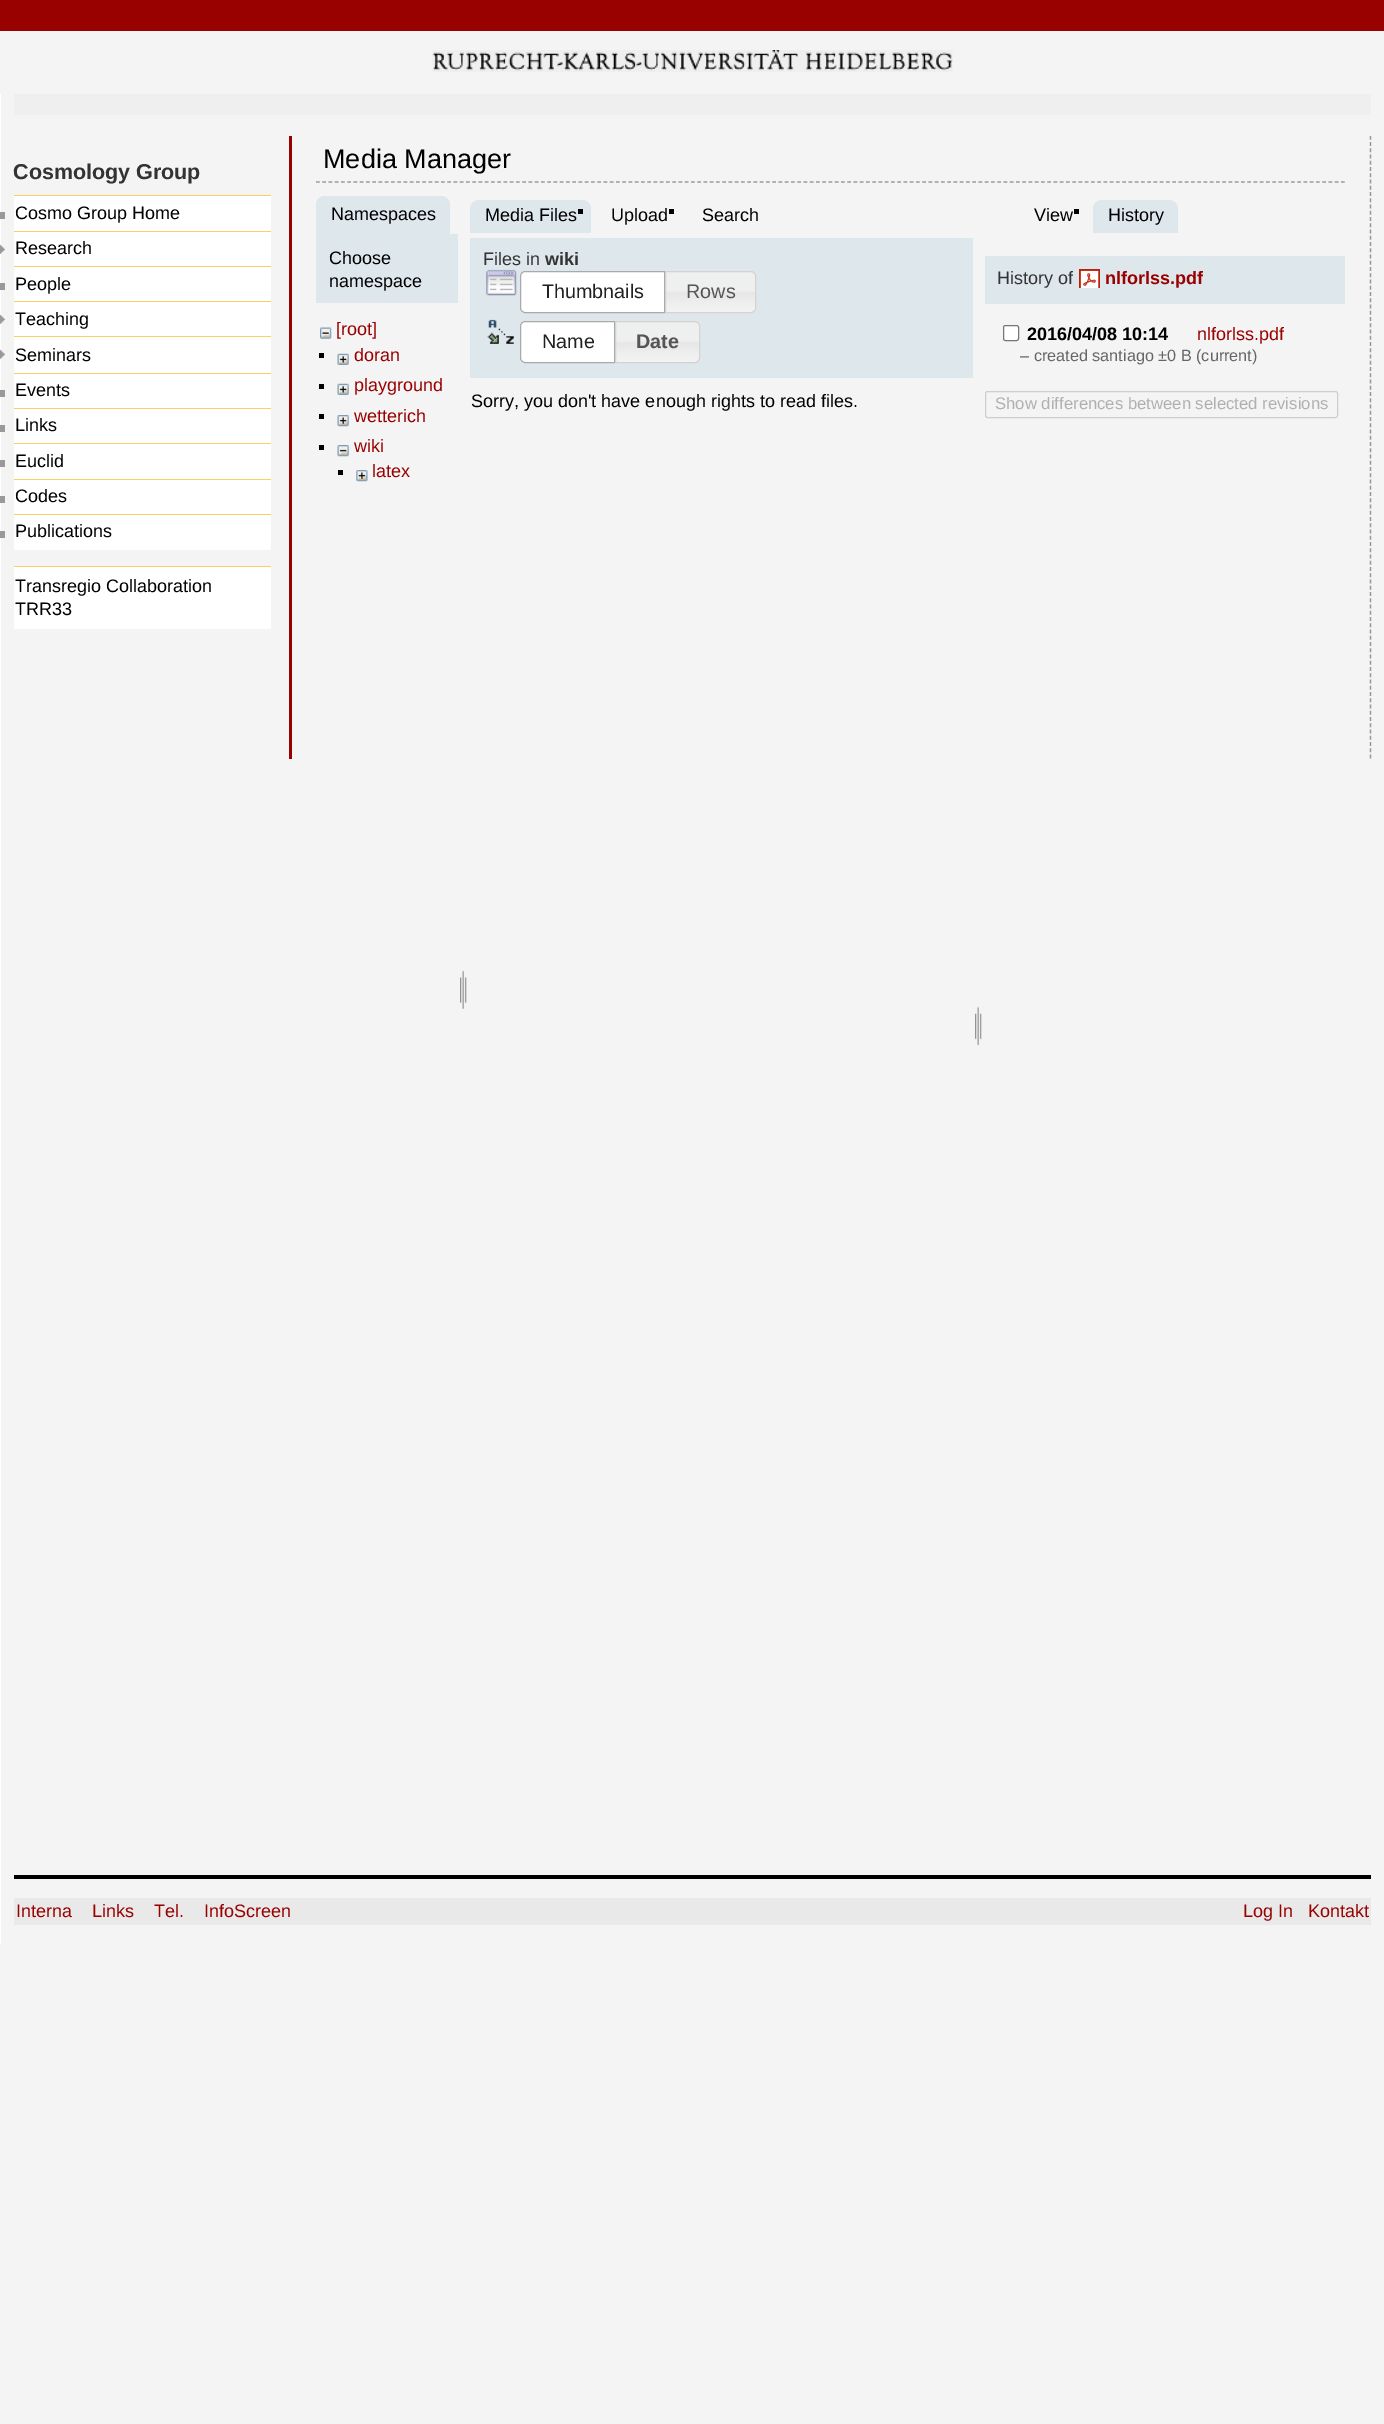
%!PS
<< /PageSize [1384 2424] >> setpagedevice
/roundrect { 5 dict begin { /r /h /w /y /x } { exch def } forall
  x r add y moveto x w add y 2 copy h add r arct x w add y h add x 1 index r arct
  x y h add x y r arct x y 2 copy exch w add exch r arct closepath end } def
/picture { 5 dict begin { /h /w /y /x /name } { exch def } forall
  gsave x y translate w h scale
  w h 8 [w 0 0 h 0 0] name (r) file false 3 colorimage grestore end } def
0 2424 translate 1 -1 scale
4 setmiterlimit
0.957 setgray
0 0 1384 2424 rectfill
0.6 0 0 setrgbcolor
0 0 1384 31 rectfill
(img1.rgb) 432 50 521 22 picture
1 setgray
0 94 1 1850 rectfill
0.937 setgray
14 94 1357 21 rectfill
/LiberationSans-Bold [21.5 0 0 -21.5 0 0] selectfont
0.2 setgray
13 179 moveto (Cosmology Group) show
0.6 setgray
0 212 5 7 rectfill
1 setgray
14 196 257 35 rectfill
1 0.8 0.4 setrgbcolor
14 195 257 1 rectfill
/LiberationSans-Regular [18 0 0 -18 0 0] selectfont
0 setgray
15 219 moveto (Cosmo Group Home) show
(img2.rgb) 0 244 5 10 picture
1 setgray
14 232 257 34 rectfill
1 0.8 0.4 setrgbcolor
14 231 257 1 rectfill
0 setgray
15 254 moveto (Research) show
0.6 setgray
0 283 5 7 rectfill
1 setgray
14 267 257 34 rectfill
1 0.8 0.4 setrgbcolor
14 266 257 1 rectfill
0 setgray
15 290 moveto (People) show
(img2.rgb) 0 314 5 10 picture
1 setgray
14 302 257 34 rectfill
1 0.8 0.4 setrgbcolor
14 301 257 1 rectfill
0 setgray
15 325 moveto (Teaching) show
(img2.rgb) 0 349 5 10 picture
1 setgray
14 337 257 36 rectfill
1 0.8 0.4 setrgbcolor
14 336 257 1 rectfill
0 setgray
15 361 moveto (Seminars) show
0.6 setgray
0 390 5 7 rectfill
1 setgray
14 374 257 34 rectfill
1 0.8 0.4 setrgbcolor
14 373 257 1 rectfill
0 setgray
15 396 moveto (Events) show
0.6 setgray
0 425 5 7 rectfill
1 setgray
14 409 257 34 rectfill
1 0.8 0.4 setrgbcolor
14 408 257 1 rectfill
0 setgray
15 431 moveto (Links) show
0.6 setgray
0 460 5 7 rectfill
1 setgray
14 444 257 35 rectfill
1 0.8 0.4 setrgbcolor
14 443 257 1 rectfill
0 setgray
15 467 moveto (Euclid) show
0.6 setgray
0 496 5 7 rectfill
1 setgray
14 480 257 34 rectfill
1 0.8 0.4 setrgbcolor
14 479 257 1 rectfill
0 setgray
15 502 moveto (Codes) show
0.6 setgray
0 531 5 7 rectfill
1 setgray
14 515 257 35 rectfill
1 0.8 0.4 setrgbcolor
14 514 257 1 rectfill
0 setgray
15 537 moveto (Publications) show
1 setgray
14 567 257 62 rectfill
1 0.8 0.4 setrgbcolor
14 566 257 1 rectfill
0 setgray
15 592 moveto (Transregio Collaboration) show
15 615 moveto (TRR33) show
0.6 setgray
1.2 setlinewidth
[3.75 2.5] 0 setdash
newpath 1370.5 136 moveto 1370.5 759 lineto stroke
0.6 0 0 setrgbcolor
289 136 3 623 rectfill
0.6 setgray
newpath 316 182 moveto 1345 182 lineto stroke
/LiberationSans-Regular [27 0 0 -27 0 0] selectfont
0 setgray
323 168 moveto (Media Manager) show
0.871 0.906 0.925 setrgbcolor
newpath 325 196 moveto 441 196 lineto 446 196 450 200 450 205 curveto 450 234 lineto 316 234 lineto 316 205 lineto 316 200 320 196 325 196 curveto closepath fill
/LiberationSans-Regular [18 0 0 -18 0 0] selectfont
0 setgray
331 220 moveto (Namespaces) show
0.871 0.906 0.925 setrgbcolor
316 234 142 69 rectfill
0 setgray
329 264 moveto (Choose) show
329 287 moveto (namespace) show
(img3.rgb) 320 327 12 12 picture
0.6 0 0 setrgbcolor
336 335 moveto ([root]) show
0 setgray
319 353 5 5 rectfill
(img4.rgb) 337 353 12 12 picture
0.6 0 0 setrgbcolor
354 361 moveto (doran) show
0 setgray
319 384 5 5 rectfill
(img4.rgb) 337 383 12 12 picture
0.6 0 0 setrgbcolor
354 391 moveto (playground) show
0 setgray
319 414 5 5 rectfill
(img5.rgb) 337 415 12 12 picture
0.6 0 0 setrgbcolor
354 422 moveto (wetterich) show
0 setgray
319 445 5 5 rectfill
(img6.rgb) 337 445 12 12 picture
0.6 0 0 setrgbcolor
354 452 moveto (wiki) show
0 setgray
338 470 5 5 rectfill
(img7.rgb) 356 470 12 12 picture
0.6 0 0 setrgbcolor
372 477 moveto (latex) show
(img8.rgb) 460 970 7 39 picture
0.871 0.906 0.925 setrgbcolor
newpath 479 200 moveto 582 200 lineto 587 200 591 204 591 209 curveto 591 233 lineto 470 233 lineto 470 209 lineto 470 204 474 200 479 200 curveto closepath fill
0 setgray
485 221 moveto (Media Files) show
578 209 5 5 rectfill
611 221 moveto (Upload) show
669 209 5 5 rectfill
702 221 moveto (Search) show
0.871 0.906 0.925 setrgbcolor
470 238 503 140 rectfill
0.2 setgray
483 265 moveto (Files in) show
/LiberationSans-Bold [18 0 0 -18 0 0] selectfont
545 265 moveto (wiki) show
(img9.rgb) 486 269 31 27 picture
1 setgray
newpath 525 271 moveto 665 271 lineto 665 313 lineto 525 313 lineto 522 313 520 311 520 308 curveto 520 276 lineto 520 273 522 271 525 271 curveto closepath fill
(img10.rgb) 520 272 2 38 picture
0.667 setgray
1 setlinewidth
[] 0 setdash
newpath 525 271.5 moveto 664.5 271.5 lineto 664.5 312.5 lineto 525 312.5 lineto 522.5 312.5 520.5 310.5 520.5 308 curveto 520.5 276 lineto 520.5 273.5 522.5 271.5 525 271.5 curveto closepath stroke
/LiberationSans-Regular [19.75 0 0 -19.75 0 0] selectfont
0.129 setgray
542 298 moveto (Thumbnails) show
(img11.rgb) 666 271 90 41 picture
0.827 setgray
newpath 665.5 271.5 moveto 751 271.5 lineto 753.5 271.5 755.5 273.5 755.5 276 curveto 755.5 308 lineto 755.5 310.5 753.5 312.5 751 312.5 curveto 665.5 312.5 lineto closepath stroke
0.333 setgray
686 298 moveto (Rows) show
(img12.rgb) 487 319 27 25 picture
1 setgray
newpath 525 321 moveto 615 321 lineto 615 363 lineto 525 363 lineto 522 363 520 361 520 358 curveto 520 326 lineto 520 323 522 321 525 321 curveto closepath fill
(img10.rgb) 520 322 2 38 picture
0.667 setgray
newpath 525 321.5 moveto 614.5 321.5 lineto 614.5 362.5 lineto 525 362.5 lineto 522.5 362.5 520.5 360.5 520.5 358 curveto 520.5 326 lineto 520.5 323.5 522.5 321.5 525 321.5 curveto closepath stroke
0.129 setgray
542 348 moveto (Name) show
(img13.rgb) 616 321 84 41 picture
0.827 setgray
newpath 615.5 321.5 moveto 695 321.5 lineto 697.5 321.5 699.5 323.5 699.5 326 curveto 699.5 358 lineto 699.5 360.5 697.5 362.5 695 362.5 curveto 615.5 362.5 lineto closepath stroke
/LiberationSans-Bold [19.75 0 0 -19.75 0 0] selectfont
0.333 setgray
636 348 moveto (Date) show
/LiberationSans-Regular [18 0 0 -18 0 0] selectfont
0 setgray
471 407 moveto (Sorry, you don't have enough rights to read files.) show
(img14.rgb) 975 1006 7 40 picture
1034 221 moveto (View) show
1074 209 5 5 rectfill
0.871 0.906 0.925 setrgbcolor
newpath 1102 200 moveto 1169 200 lineto 1174 200 1178 204 1178 209 curveto 1178 233 lineto 1093 233 lineto 1093 209 lineto 1093 204 1097 200 1102 200 curveto closepath fill
0 setgray
1108 221 moveto (History) show
0.871 0.906 0.925 setrgbcolor
985 256 360 48 rectfill
0.2 setgray
997 284 moveto (History of) show
(img15.rgb) 1079 269 21 19 picture
/LiberationSans-Bold [18 0 0 -18 0 0] selectfont
0.6 0 0 setrgbcolor
1105 284 moveto (nlforlss.pdf) show
1 setgray
1003.5 325.5 15 15 2 roundrect gsave fill grestore
0.463 setgray
stroke
0 setgray
1027 340 moveto (2016/04/08 10:14) show
/LiberationSans-Regular [18 0 0 -18 0 0] selectfont
0.6 0 0 setrgbcolor
1197 340 moveto (nlforlss.pdf) show
/LiberationSans-Regular [16.25 0 0 -16.25 0 0] selectfont
0.4 setgray
1020 361 moveto (– created santiago ±0 B \(current\)) show
0.808 setgray
985.5 391.5 352 26 2 roundrect stroke
/LiberationSans-Regular [16.7 0 0 -16.7 0 0] selectfont
0.69 setgray
995 409 moveto (Show differences between selected revisions) show
0 setgray
14 1875 1357 4 rectfill
0.914 setgray
14 1898 1357 27 rectfill
/LiberationSans-Regular [18 0 0 -18 0 0] selectfont
0.6 0 0 setrgbcolor
16 1917 moveto (Interna) show
92 1917 moveto (Links) show
154 1917 moveto (Tel.) show
204 1917 moveto (InfoScreen) show
1243 1917 moveto (Log In) show
1308 1917 moveto (Kontakt) show
showpage
